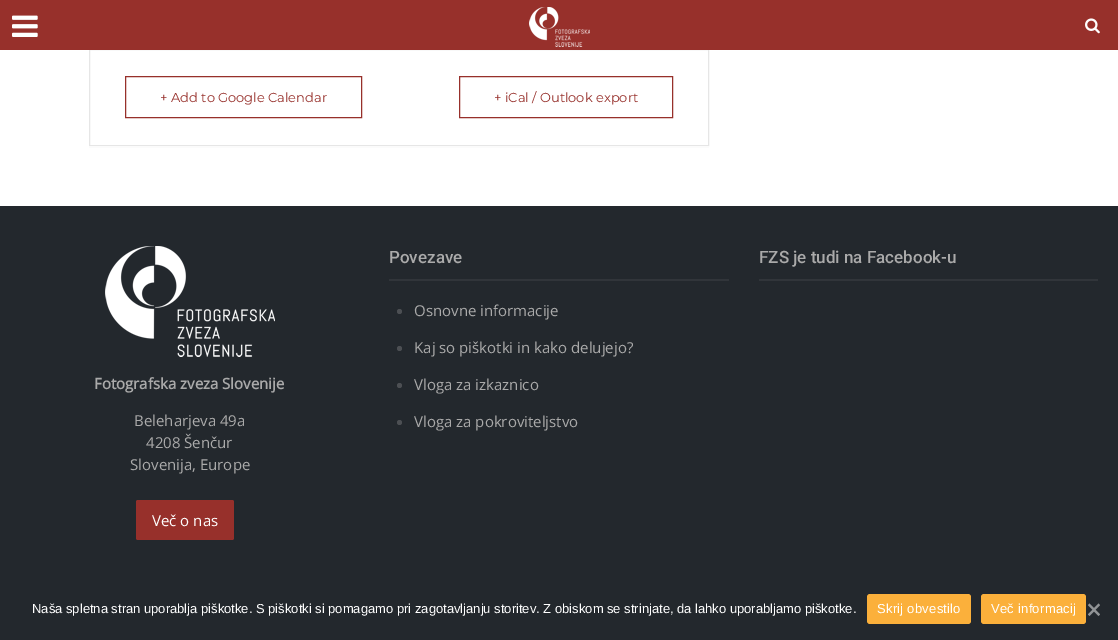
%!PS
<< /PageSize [1118 640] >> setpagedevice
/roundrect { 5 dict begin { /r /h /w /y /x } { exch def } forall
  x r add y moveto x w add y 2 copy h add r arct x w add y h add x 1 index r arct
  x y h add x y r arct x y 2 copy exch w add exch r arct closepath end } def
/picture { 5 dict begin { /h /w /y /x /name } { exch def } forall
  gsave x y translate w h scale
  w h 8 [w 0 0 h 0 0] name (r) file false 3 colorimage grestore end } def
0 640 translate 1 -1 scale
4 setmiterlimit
1 setgray
0 0 1118 640 rectfill
0.902 setgray
89.5 49.5 619 96 rectstroke
0.592 0.188 0.169 setrgbcolor
0 0 1118 50 rectfill
(img1.rgb) 12 15 26 22 picture
(img2.rgb) 529 7 61 40 picture
(img3.rgb) 1085 18 15 16 picture
0.984 setgray
89 146 620 2 rectfill
0.592 0.188 0.169 setrgbcolor
125.5 76.5 236 41 rectstroke
/Montserrat-Regular [13 0 0 -13 0 0] selectfont
160 102 moveto (+ Add to Google Calendar) show
459.5 76.5 213 41 rectstroke
494 102 moveto (+ iCal / Outlook export) show
0.137 0.157 0.176 setrgbcolor
0 206 1118 434 rectfill
/Roboto-Medium [17 0 0 -17 0 0] selectfont
0.667 setgray
389 263 moveto (Povezave) show
0.192 0.208 0.227 setrgbcolor
389 279 340 2 rectfill
0.298 0.31 0.325 setrgbcolor
newpath 399.5 311.5 2.5 0 360 arc closepath fill
/OpenSans-Regular [15 0 0 -15 0 0] selectfont
0.667 setgray
414 316 moveto (Osnovne informacije) show
0.298 0.31 0.325 setrgbcolor
newpath 399.5 348.5 2.5 0 360 arc closepath fill
0.667 setgray
414 353 moveto (Kaj so piškotki in kako delujejo?) show
0.298 0.31 0.325 setrgbcolor
newpath 399.5 385.5 2.5 0 360 arc closepath fill
0.667 setgray
414 390 moveto (Vloga za izkaznico) show
0.298 0.31 0.325 setrgbcolor
newpath 399.5 422.5 2.5 0 360 arc closepath fill
0.667 setgray
414 427 moveto (Vloga za pokroviteljstvo) show
/Roboto-Medium [17 0 0 -17 0 0] selectfont
759 263 moveto (FZS je tudi na Facebook-u) show
0.192 0.208 0.227 setrgbcolor
759 279 339 2 rectfill
(img4.rgb) 105 246 170 111 picture
/OpenSans-Bold [15 0 0 -15 0 0] selectfont
0.667 setgray
94 389 moveto (Fotografska zveza Slovenije) show
/OpenSans-Regular [15 0 0 -15 0 0] selectfont
134 426 moveto (Beleharjeva 49a) show
146 448 moveto (4208 Šenčur) show
130 470 moveto (Slovenija, Europe) show
0.592 0.188 0.169 setrgbcolor
136 500 98 40 2 roundrect fill
1 setgray
152 526 moveto (Več o nas) show
/LiberationSans-Regular [13 0 0 -13 0 0] selectfont
32 613 moveto (Naša spletna stran uporablja piškotke. S piškotki si pomagamo pri zagotavljanju storitev. Z obiskom se strinjate, da lahko uporabljamo piškotke.) show
0.984 0.69 0.231 setrgbcolor
867 594 104 30 3 roundrect fill
1 setgray
877 613 moveto 0.25 0 (Skrij obvestilo) ashow
0.984 0.69 0.231 setrgbcolor
981 594 105 30 3 roundrect fill
1 setgray
991 613 moveto 0.25 0 (Več informacij) ashow
0.569 0.58 0.588 setrgbcolor
newpath 1098.5 603.5 moveto 1100 605 lineto 1089.5 616 lineto 1088 614.5 lineto closepath fill
newpath 1088 605 moveto 1089.5 603.5 lineto 1100 614.5 lineto 1098.5 616 lineto closepath fill
showpage
